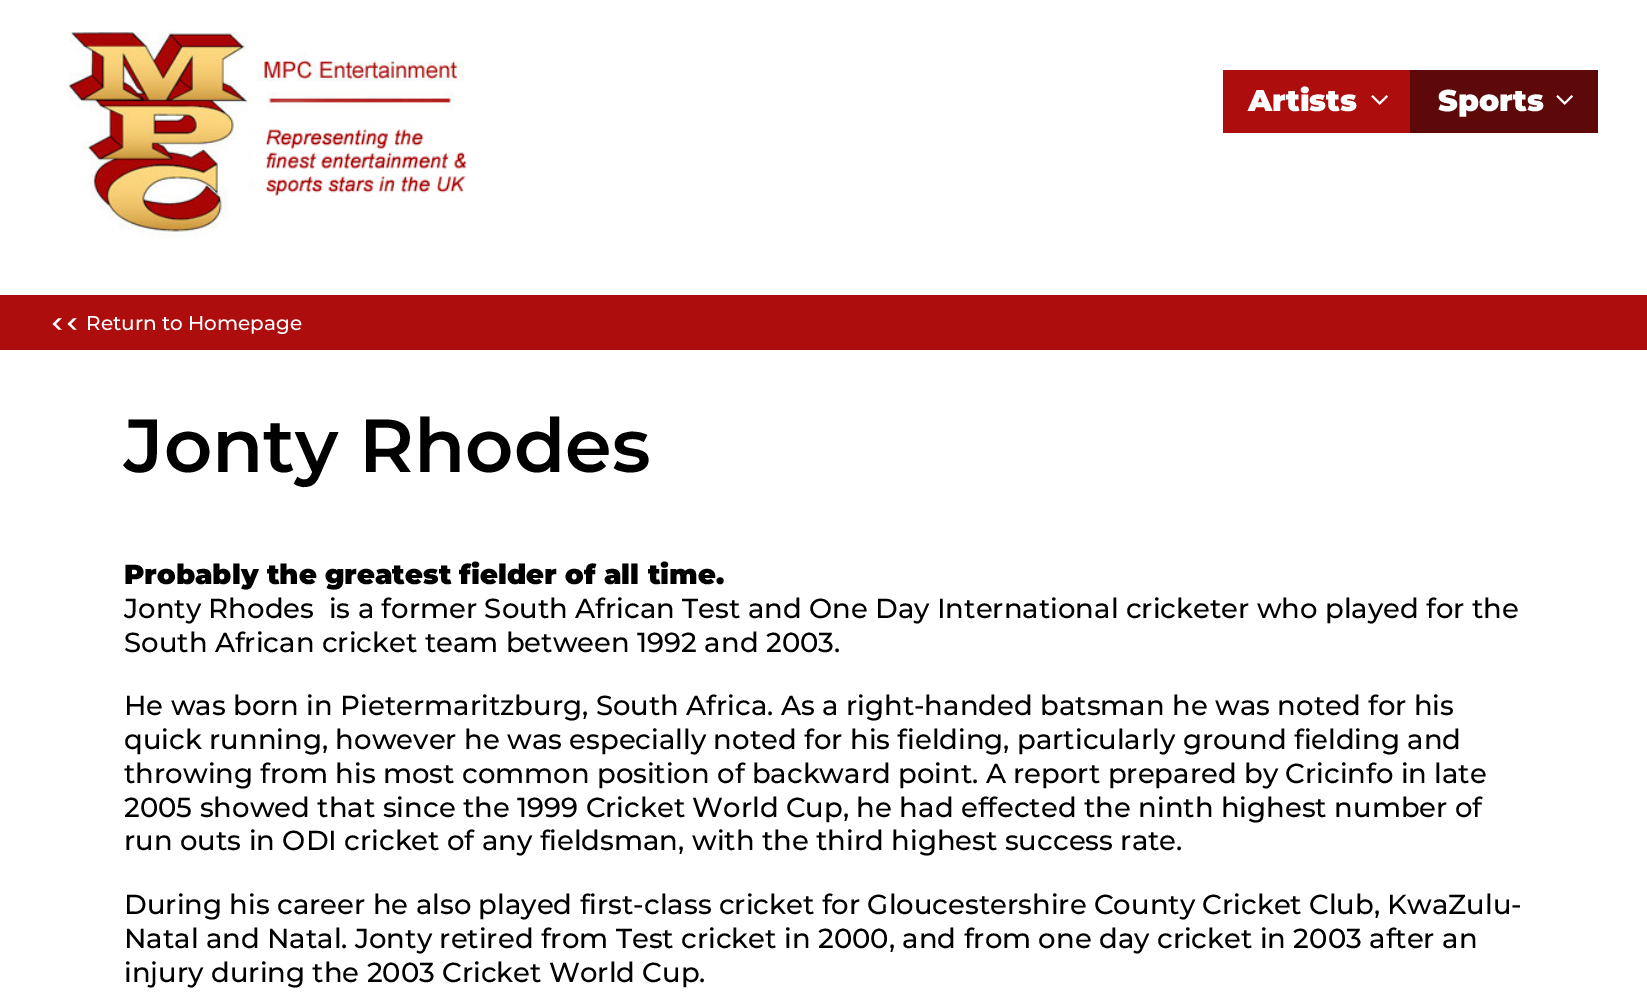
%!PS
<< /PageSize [1647 1003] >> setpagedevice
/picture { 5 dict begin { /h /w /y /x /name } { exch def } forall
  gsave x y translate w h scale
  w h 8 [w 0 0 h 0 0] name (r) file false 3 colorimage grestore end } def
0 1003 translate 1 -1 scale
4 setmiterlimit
1 setgray
0 0 1647 1003 rectfill
(img1.rgb) 66 31 401 210 picture
0.678 0.051 0.051 setrgbcolor
1223 70 187 63 rectfill
/Montserrat-Black [30 0 0 -30 0 0] selectfont
1 setgray
1248 111 moveto (Artists) show
(img2.rgb) 1371 95 17 10 picture
0.365 0.035 0.035 setrgbcolor
1410 70 188 63 rectfill
1 setgray
1438 111 moveto (Sports) show
(img3.rgb) 1556 95 17 10 picture
0.678 0.051 0.051 setrgbcolor
0 295 1647 55 rectfill
/Poppins-Medium [25 0 0 -25 0 0] selectfont
1 setgray
50 333 moveto (<<) show
/Montserrat-Medium [20 0 0 -20 0 0] selectfont
86 330 moveto (Return to Homepage) show
/Montserrat-SemiBold [75 0 0 -75 0 0] selectfont
0 setgray
124 472 moveto (Jonty Rhodes) show
/Montserrat-Black [27.5 0 0 -27.5 0 0] selectfont
124 584 moveto (Probably the greatest fielder of all time.) show
/Montserrat-Medium [27.5 0 0 -27.5 0 0] selectfont
124 618 moveto (Jonty Rhodes  is a former South African Test and One Day International cricketer who played for the) show
124 652 moveto (South African cricket team between 1992 and 2003.) show
124 715 moveto (He was born in Pietermaritzburg, South Africa. As a right-handed batsman he was noted for his) show
124 749 moveto (quick running, however he was especially noted for his fielding, particularly ground fielding and) show
124 783 moveto (throwing from his most common position of backward point. A report prepared by Cricinfo in late) show
124 817 moveto (2005 showed that since the 1999 Cricket World Cup, he had effected the ninth highest number of) show
124 850 moveto (run outs in ODI cricket of any fieldsman, with the third highest success rate.) show
124 914 moveto (During his career he also played first-class cricket for Gloucestershire County Cricket Club, KwaZulu-) show
124 948 moveto (Natal and Natal. Jonty retired from Test cricket in 2000, and from one day cricket in 2003 after an) show
124 982 moveto (injury during the 2003 Cricket World Cup.) show
showpage
